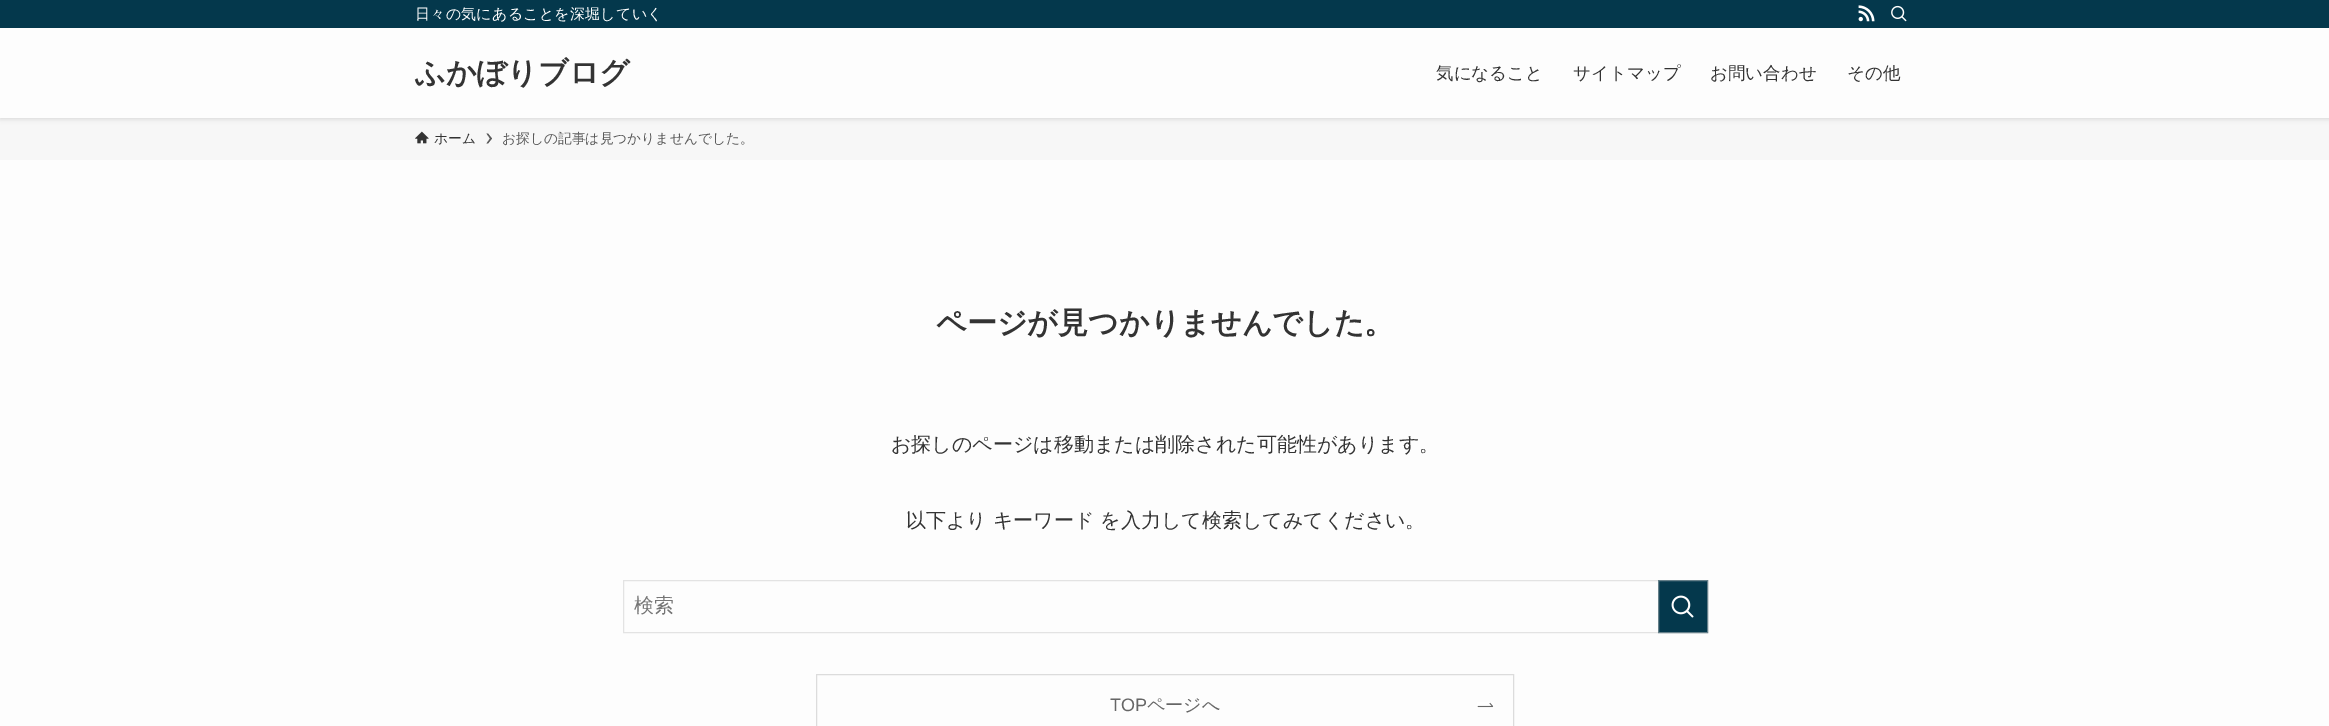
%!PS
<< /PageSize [2329 726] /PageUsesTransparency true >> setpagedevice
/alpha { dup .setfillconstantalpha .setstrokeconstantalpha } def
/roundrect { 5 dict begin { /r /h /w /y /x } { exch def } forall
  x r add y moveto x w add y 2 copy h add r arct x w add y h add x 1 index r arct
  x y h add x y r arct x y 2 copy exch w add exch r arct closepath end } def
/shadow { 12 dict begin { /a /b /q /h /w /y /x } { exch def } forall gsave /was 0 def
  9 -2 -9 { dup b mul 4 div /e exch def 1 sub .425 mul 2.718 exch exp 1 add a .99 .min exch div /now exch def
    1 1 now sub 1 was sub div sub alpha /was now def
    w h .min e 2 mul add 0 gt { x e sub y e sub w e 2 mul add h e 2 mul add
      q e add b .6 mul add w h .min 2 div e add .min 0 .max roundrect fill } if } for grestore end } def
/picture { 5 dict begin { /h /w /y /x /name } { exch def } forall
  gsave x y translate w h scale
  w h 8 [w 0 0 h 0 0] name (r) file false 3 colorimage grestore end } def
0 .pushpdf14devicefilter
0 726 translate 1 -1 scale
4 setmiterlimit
0.992 setgray
0 0 2329 726 rectfill
0.969 setgray
0 118 2329 42 rectfill
0 setgray
0 1 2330 118 0 2.5 0.12 shadow
0.992 setgray
0 28 2329 90 rectfill
0.016 0.22 0.298 setrgbcolor
0 0 2329 28 rectfill
/WenQuanYiZenHei-Medium [15 0 0 -15 0 0] selectfont
1 setgray
415 19 moveto 0.25 0 (日々の気にあることを深堀していく) ashow
(img1.rgb) 1858 5 17 17 picture
(img2.rgb) 1891 5 16 17 picture
/WenQuanYiZenHei-Bold [30 0 0 -30 0 0] selectfont
0.2 setgray
415 83 moveto (ふかぼりブログ) show
/WenQuanYiZenHei-Medium [17.5 0 0 -17.5 0 0] selectfont
1436 79 moveto (気になること) show
1573 79 moveto (サイトマップ) show
1710 79 moveto (お問い合わせ) show
1847 79 moveto (その他) show
(img3.rgb) 415 131 14 13 picture
/WenQuanYiZenHei-Medium [13.75 0 0 -13.75 0 0] selectfont
434 143 moveto (ホーム) show
0.353 setgray
newpath 488 133.5 moveto 486.5 133.5 lineto 490 138.5 lineto 486.5 143.5 lineto 488 143.5 lineto 492 138.5 lineto closepath fill
502 143 moveto (お探しの記事は見つかりませんでした。) show
/WenQuanYiZenHei-Bold [30 0 0 -30 0 0] selectfont
0.2 setgray
936 333 moveto (ページが見つかりませんでした。) show
/WenQuanYiZenHei-Medium [20 0 0 -20 0 0] selectfont
891 451 moveto (お探しのページは移動または削除された可能性があります。) show
906 527 moveto (以下より キーワード を入力して検索してみてください。) show
0.89 setgray
623.5 580.5 1084 52 rectstroke
0.459 setgray
634 612 moveto (検索) show
0.016 0.22 0.298 setrgbcolor
newpath 1658.5 580.5 moveto 1707.5 580.5 lineto 1707.5 632.5 lineto 1658.5 632.5 lineto closepath gsave fill grestore
0.4 0.502 0.541 setrgbcolor
stroke
(img4.rgb) 1671 595 23 23 picture
0.863 setgray
816.5 674.5 697 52 rectstroke
/LiberationSans-Regular [18 0 0 -18 0 0] selectfont
0.4 setgray
1110 711 moveto (TOP) show
/WenQuanYiZenHei-Medium [18 0 0 -18 0 0] selectfont
1147 711 moveto (ページへ) show
(img5.rgb) 1477 702 17 6 picture
.poppdf14devicefilter showpage
